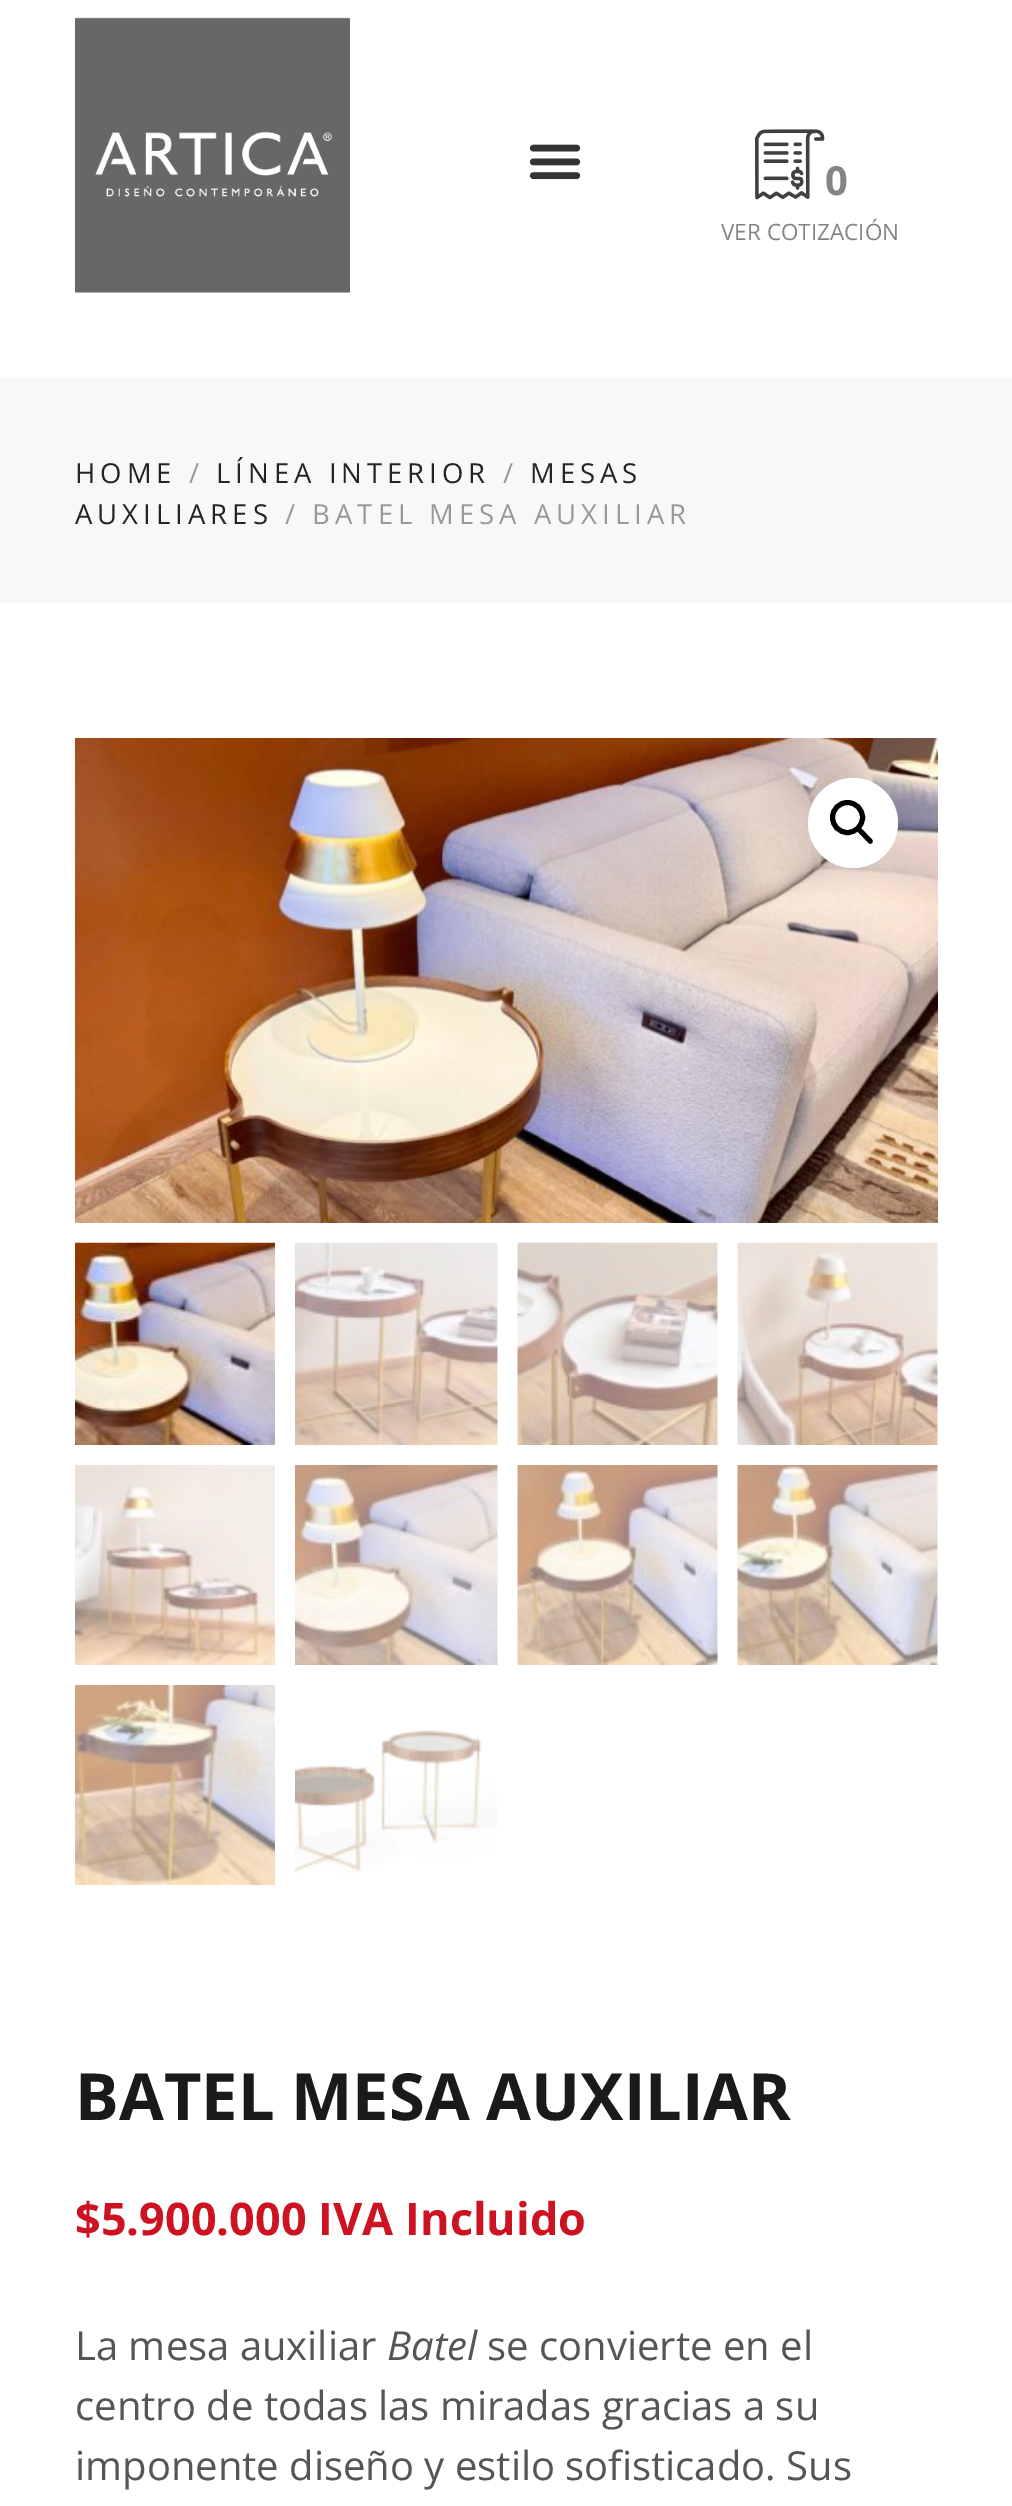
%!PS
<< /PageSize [1012 2506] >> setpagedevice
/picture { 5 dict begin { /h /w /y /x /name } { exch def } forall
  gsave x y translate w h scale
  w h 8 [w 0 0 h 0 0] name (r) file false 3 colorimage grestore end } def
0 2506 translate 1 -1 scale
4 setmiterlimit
1 setgray
0 0 1012 2506 rectfill
(img1.rgb) 75 17 275 276 picture
(img2.rgb) 529 144 52 36 picture
(img3.rgb) 755 129 70 71 picture
/OpenSans-Bold [40 0 0 -40 0 0] selectfont
0.518 setgray
825 195 moveto (0) show
/OpenSans-Regular [22.5 0 0 -22.5 0 0] selectfont
721 240 moveto (VER COTIZACIÓN) show
0.973 setgray
0 378 1012 225 rectfill
/OpenSans-Regular [27.5 0 0 -27.5 0 0] selectfont
0.141 setgray
75 483 moveto 5 0 (HOME) ashow
0.6 setgray
189 483 moveto 5 0 (/) ashow
0.141 setgray
216 483 moveto 5 0 (LÍNEA INTERIOR) ashow
0.6 setgray
503 483 moveto 5 0 (/) ashow
0.141 setgray
530 483 moveto 5 0 (MESAS) ashow
75 524 moveto 5 0 (AUXILIARES) ashow
0.6 setgray
285 524 moveto 5 0 (/ BATEL MESA AUXILIAR) ashow
(img4.rgb) 75 738 863 485 picture
1 setgray
newpath 853 823 45 0 360 arc closepath fill
0 setgray
5 setlinewidth
newpath 847.5 817.5 15 0 360 arc closepath stroke
newpath 858 828.5 moveto 859 827.5 860.5 827.5 861.5 828.5 curveto 872 839.5 lineto 873 840.5 873 842 872 843 curveto 871 844 869.5 844 868.5 843 curveto 858 832 lineto 857 831 857 829.5 858 828.5 curveto closepath fill
(img5.rgb) 75 1242 200 203 picture
(img6.rgb) 295 1242 203 203 picture
(img7.rgb) 517 1242 201 203 picture
(img8.rgb) 737 1242 201 203 picture
(img9.rgb) 75 1465 200 200 picture
(img10.rgb) 295 1465 203 200 picture
(img11.rgb) 517 1465 201 200 picture
(img12.rgb) 737 1465 201 200 picture
(img13.rgb) 75 1685 200 200 picture
(img14.rgb) 295 1730 202 144 picture
/OpenSans-Bold [65 0 0 -65 0 0] selectfont
0.102 setgray
75 2120 moveto (BATEL MESA AUXILIAR) show
/OpenSans-Bold [45 0 0 -45 0 0] selectfont
0.804 0.075 0.133 setrgbcolor
75 2235 moveto ($5.900.000 IVA Incluido) show
/OpenSans-Regular [40 0 0 -40 0 0] selectfont
0.333 setgray
75 2360 moveto (La mesa auxiliar) show
/OpenSans-Italic [40 0 0 -40 0 0] selectfont
387 2360 moveto (Batel) show
/OpenSans-Regular [40 0 0 -40 0 0] selectfont
487 2360 moveto (se convierte en el) show
75 2420 moveto (centro de todas las miradas gracias a su) show
75 2480 moveto (imponente diseño y estilo sofisticado. Sus) show
showpage
